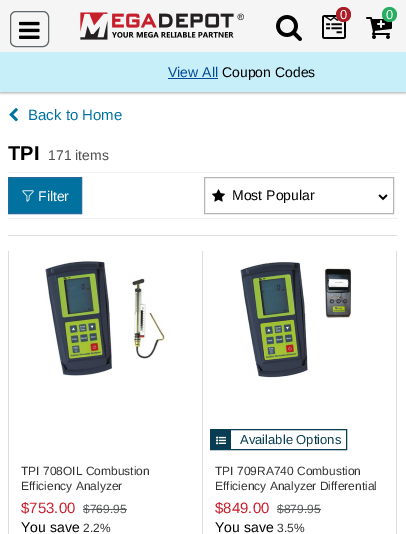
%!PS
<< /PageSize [406 534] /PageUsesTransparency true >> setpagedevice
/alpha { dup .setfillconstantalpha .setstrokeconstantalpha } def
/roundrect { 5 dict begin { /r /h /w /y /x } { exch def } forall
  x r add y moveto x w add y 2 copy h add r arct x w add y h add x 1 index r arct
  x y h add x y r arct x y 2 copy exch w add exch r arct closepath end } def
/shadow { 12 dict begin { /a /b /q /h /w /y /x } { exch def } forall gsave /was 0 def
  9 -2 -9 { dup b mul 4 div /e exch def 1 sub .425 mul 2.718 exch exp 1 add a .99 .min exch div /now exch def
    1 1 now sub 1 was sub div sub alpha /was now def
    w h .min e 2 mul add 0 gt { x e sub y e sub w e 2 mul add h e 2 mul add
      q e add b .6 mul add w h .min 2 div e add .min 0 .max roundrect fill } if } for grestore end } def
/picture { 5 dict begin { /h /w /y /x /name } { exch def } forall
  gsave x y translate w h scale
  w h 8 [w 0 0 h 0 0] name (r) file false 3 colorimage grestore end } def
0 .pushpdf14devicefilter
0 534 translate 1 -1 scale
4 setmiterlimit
1 setgray
0 0 406 534 rectfill
0.922 setgray
-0.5 -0.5 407 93 rectstroke
0 setgray
0 2 406 92 0 1 0.16 shadow
0.961 setgray
0 0 406 52 rectfill
0.376 0.408 0.42 setrgbcolor
10.5 11.5 38 35 5.5 roundrect stroke
(img1.rgb) 19 21 21 18 picture
(img2.rgb) 80 12 164 28 picture
(img3.rgb) 276 15 26 26 picture
(img4.rgb) 322 15 24 24 picture
0.671 0.11 0.145 setrgbcolor
newpath 343.5 14.5 7.5 0 360 arc closepath fill
/LiberationSans-Regular [13 0 0 -13 0 0] selectfont
1 setgray
340 19 moveto (0) show
(img5.rgb) 366 17 26 22 picture
0.153 0.682 0.376 setrgbcolor
newpath 389.5 14.5 7.5 0 360 arc closepath fill
1 setgray
386 19 moveto (0) show
0.78 0.937 0.976 setrgbcolor
0 52 406 40 rectfill
/LiberationSans-Regular [14 0 0 -14 0 0] selectfont
0.012 0.282 0.588 setrgbcolor
168 77 moveto (View All) show
168 78 50 1 rectfill
0 setgray
222 77 moveto (Coupon Codes) show
(img6.rgb) 9 107 9 15 picture
/LiberationSans-Regular [15 0 0 -15 0 0] selectfont
0.004 0.447 0.627 setrgbcolor
28 120 moveto (Back to Home) show
/LiberationSans-Bold [20 0 0 -20 0 0] selectfont
0 setgray
8 160 moveto (TPI) show
/LiberationSans-Regular [14 0 0 -14 0 0] selectfont
0.31 setgray
48 160 moveto (171 items) show
0.945 setgray
8 172 390 1 rectfill
8 218 390 1 rectfill
0.004 0.447 0.627 setrgbcolor
newpath 8.5 177.5 moveto 81.5 177.5 lineto 81.5 213.5 lineto 8.5 213.5 lineto closepath gsave fill grestore
0.145 0.408 0.604 setrgbcolor
stroke
(img7.rgb) 22 190 12 12 picture
1 setgray
38 201 moveto (Filter) show
0.71 setgray
204.5 177.5 189 36 rectstroke
(img8.rgb) 212 189 13 13 picture
0 setgray
232 200 moveto (Most Popular) show
(img9.rgb) 378 194 10 7 picture
0.863 0.871 0.867 setrgbcolor
8 235 389 1 rectfill
8 251 1 283 rectfill
(img10.rgb) 45 259 120 118 picture
/LiberationSans-Regular [12 0 0 -12 0 0] selectfont
0.2 setgray
21 475 moveto (TPI 708OIL Combustion) show
21 490 moveto (Efficiency Analyzer) show
/LiberationSans-Regular [15 0 0 -15 0 0] selectfont
0.78 0.125 0.173 setrgbcolor
21 513 moveto ($753.00) show
/LiberationSans-Regular [12 0 0 -12 0 0] selectfont
0.341 0.349 0.357 setrgbcolor
83 513 moveto ($769.95) show
83 509 44 1 rectfill
/LiberationSans-Regular [14 0 0 -14 0 0] selectfont
0 setgray
21 532 moveto (You save) show
/LiberationSans-Regular [12 0 0 -12 0 0] selectfont
0.2 setgray
83 532 moveto (2.2%) show
0.863 0.871 0.867 setrgbcolor
202 251 1 283 rectfill
(img11.rgb) 240 262 112 116 picture
0.031 0.235 0.322 setrgbcolor
210.5 429.5 136 20 rectstroke
211 430 20 19 rectfill
(img12.rgb) 216 436 10 9 picture
/LiberationSans-Regular [13 0 0 -13 0 0] selectfont
240 444 moveto (Available Options) show
/LiberationSans-Regular [12 0 0 -12 0 0] selectfont
0.2 setgray
215 475 moveto (TPI 709RA740 Combustion) show
215 490 moveto (Efficiency Analyzer Differential) show
/LiberationSans-Regular [15 0 0 -15 0 0] selectfont
0.78 0.125 0.173 setrgbcolor
215 513 moveto ($849.00) show
/LiberationSans-Regular [12 0 0 -12 0 0] selectfont
0.341 0.349 0.357 setrgbcolor
277 513 moveto ($879.95) show
277 509 44 1 rectfill
/LiberationSans-Regular [14 0 0 -14 0 0] selectfont
0 setgray
215 532 moveto (You save) show
/LiberationSans-Regular [12 0 0 -12 0 0] selectfont
0.2 setgray
277 532 moveto (3.5%) show
0.863 0.871 0.867 setrgbcolor
396 251 1 283 rectfill
.poppdf14devicefilter showpage
